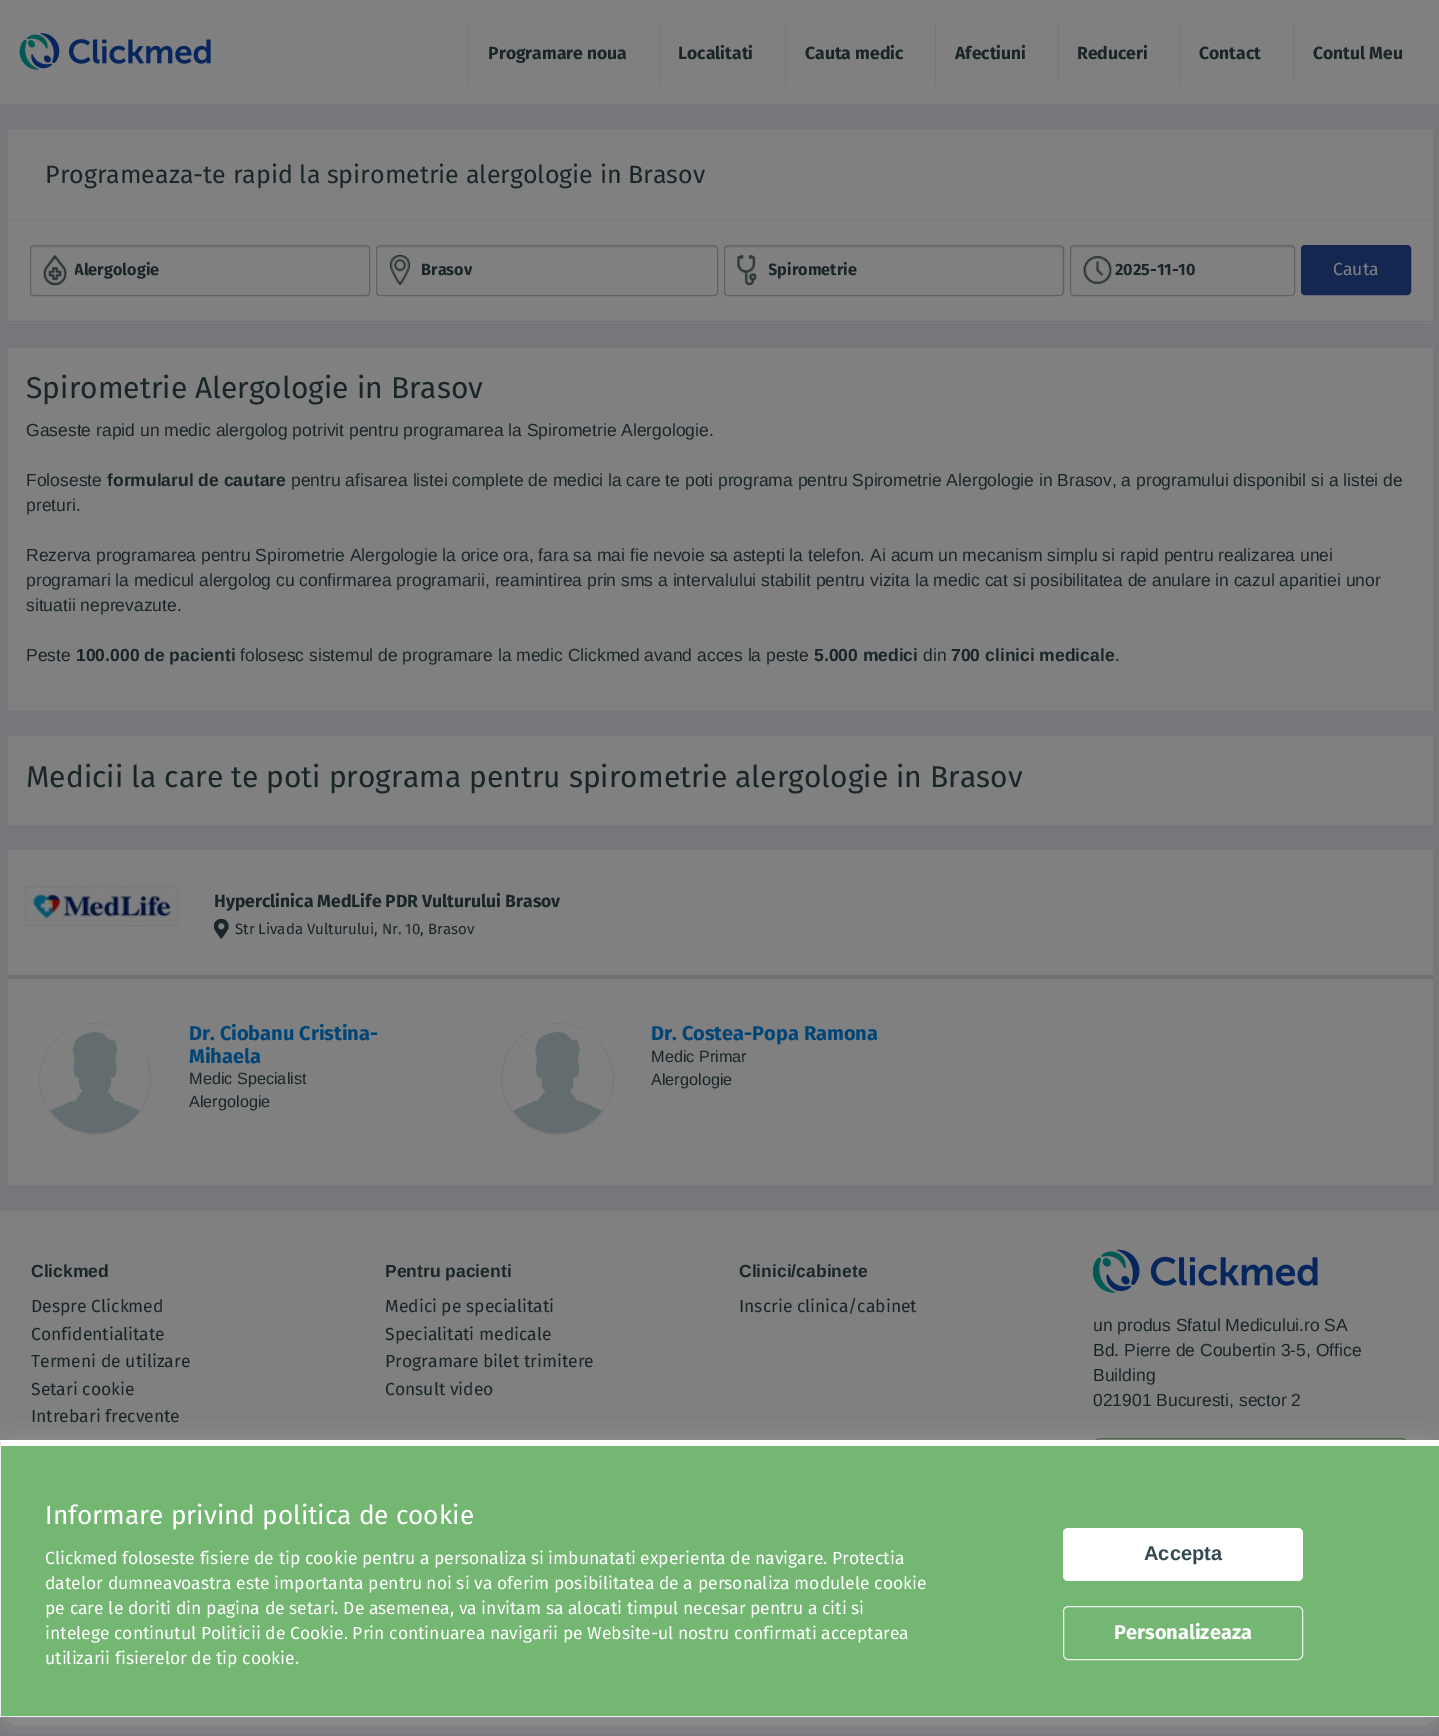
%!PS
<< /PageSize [1439 1736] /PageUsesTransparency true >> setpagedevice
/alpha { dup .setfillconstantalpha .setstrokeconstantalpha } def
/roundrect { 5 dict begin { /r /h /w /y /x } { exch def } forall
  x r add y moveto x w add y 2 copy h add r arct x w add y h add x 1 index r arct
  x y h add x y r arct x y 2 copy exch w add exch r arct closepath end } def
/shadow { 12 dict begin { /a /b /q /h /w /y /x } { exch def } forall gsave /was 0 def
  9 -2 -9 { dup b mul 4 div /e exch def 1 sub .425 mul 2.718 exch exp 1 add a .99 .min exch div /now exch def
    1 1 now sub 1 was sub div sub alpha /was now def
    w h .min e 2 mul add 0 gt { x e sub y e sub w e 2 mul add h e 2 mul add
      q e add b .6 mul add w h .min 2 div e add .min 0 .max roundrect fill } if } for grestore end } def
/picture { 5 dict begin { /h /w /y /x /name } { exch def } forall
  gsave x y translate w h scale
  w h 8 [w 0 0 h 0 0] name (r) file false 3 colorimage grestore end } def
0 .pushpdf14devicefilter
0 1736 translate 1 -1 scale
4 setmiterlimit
0.463 0.467 0.478 setrgbcolor
0 0 1439 1736 rectfill
0.502 setgray
0 0 1439 104 rectfill
(img1.rgb) 19 33 192 37 picture
0.467 setgray
468 23 1 62 rectfill
/FiraSans-Bold [17.5 0 0 -17.5 0 0] selectfont
0.098 0.145 0.157 setrgbcolor
488 59 moveto (Programare noua) show
0.467 setgray
659 23 1 62 rectfill
0.098 0.145 0.157 setrgbcolor
678 59 moveto (Localitati) show
0.467 setgray
785 23 1 62 rectfill
0.098 0.145 0.157 setrgbcolor
805 59 moveto (Cauta medic) show
0.467 setgray
935 23 1 62 rectfill
0.098 0.145 0.157 setrgbcolor
955 59 moveto (Afectiuni) show
0.467 setgray
1058 23 1 62 rectfill
0.098 0.145 0.157 setrgbcolor
1077 59 moveto (Reduceri) show
0.467 setgray
1180 23 1 62 rectfill
0.098 0.145 0.157 setrgbcolor
1199 59 moveto (Contact) show
0.467 setgray
1293 23 1 62 rectfill
0.098 0.145 0.157 setrgbcolor
1313 59 moveto (Contul Meu) show
0.502 setgray
newpath 12 129 moveto 1429 129 lineto 1431 129 1433 131 1433 133 curveto 1433 220 lineto 8 220 lineto 8 133 lineto 8 131 10 129 12 129 curveto closepath fill
0.475 setgray
8 219 1425 1 rectfill
/FiraSans-Regular [25 0 0 -25 0 0] selectfont
0.098 0.145 0.157 setrgbcolor
45 183 moveto (Programeaza-te rapid la spirometrie alergologie in Brasov) show
0.502 setgray
newpath 8 220 moveto 1433 220 lineto 1433 319 lineto 1433 321 1431 323 1429 323 curveto 12 323 lineto 10 323 8 321 8 319 curveto closepath fill
0.443 setgray
10 321 1421 1 rectfill
(img2.rgb) 43 255 24 30 picture
0.463 setgray
newpath 34 248 moveto 366 248 lineto 368 248 369 249 369 250 curveto 369 247 lineto 367 246 lineto 34 246 lineto 31 246 31 248 31 250 curveto 31 249 32 248 34 248 curveto closepath fill
0.365 0.388 0.396 setrgbcolor
30.5 245.5 339 50 3.5 roundrect stroke
gsave
75 259 269 24 rectclip
/FiraSans-Bold [16.25 0 0 -16.25 0 0] selectfont
0.098 0.145 0.157 setrgbcolor
74 275 moveto (Alergologie) show
grestore
(img3.rgb) 390 255 20 30 picture
0.463 setgray
newpath 380 248 moveto 714 248 lineto 715 248 716 249 716 250 curveto 716 248 716 246 714 246 curveto 380 246 lineto 378 247 lineto 378 250 lineto 378 249 379 248 380 248 curveto closepath fill
0.365 0.388 0.396 setrgbcolor
376.5 245.5 341 50 3.5 roundrect stroke
/FiraSans-Bold [16.25 0 0 -16.25 0 0] selectfont
0.098 0.145 0.157 setrgbcolor
421 275 moveto (Brasov) show
(img4.rgb) 737 255 20 30 picture
0.463 setgray
newpath 728 248 moveto 1060 248 lineto 1061 248 1062 249 1062 250 curveto 1062 295 lineto 1063 294 1063 293 1063 292 curveto 1063 248 lineto 1063 247 1062 246 1060 246 curveto 728 246 lineto 726 246 725 247 725 248 curveto 725 250 lineto 725 249 726 248 728 248 curveto closepath fill
0.365 0.388 0.396 setrgbcolor
724.5 245.5 339 50 3.5 roundrect stroke
gsave
769 259 269 24 rectclip
0.098 0.145 0.157 setrgbcolor
768 275 moveto (Spirometrie) show
grestore
(img5.rgb) 1083 256 29 28 picture
0.463 setgray
newpath 1074 248 moveto 1291 248 lineto 1293 248 1294 249 1294 250 curveto 1294 248 1294 246 1292 246 curveto 1074 246 lineto 1071 246 1071 248 1071 250 curveto 1071 249 1072 248 1074 248 curveto closepath fill
0.365 0.388 0.396 setrgbcolor
1070.5 245.5 224 50 3.5 roundrect stroke
0.098 0.145 0.157 setrgbcolor
1115 275 moveto (2025-11-10) show
0.075 0.153 0.314 setrgbcolor
1301.5 245.5 109 49 3.5 roundrect gsave fill grestore
stroke
/FiraSans-Regular [17.5 0 0 -17.5 0 0] selectfont
0.502 setgray
1333 275 moveto (Cauta) show
8 348 1425 363 rectfill
/FiraSans-Regular [30 0 0 -30 0 0] selectfont
0.098 0.145 0.157 setrgbcolor
26 398 moveto (Spirometrie Alergologie in Brasov) show
/LiberationSans-Regular [17.5 0 0 -17.5 0 0] selectfont
26 436 moveto (Gaseste rapid un medic alergolog potrivit pentru programarea la Spirometrie Alergologie.) show
26 486 moveto (Foloseste) show
/LiberationSans-Bold [17.5 0 0 -17.5 0 0] selectfont
107 486 moveto (formularul de cautare) show
/LiberationSans-Regular [17.5 0 0 -17.5 0 0] selectfont
291 486 moveto (pentru afisarea listei complete de medici la care te poti programa pentru Spirometrie Alergologie in Brasov, a programului disponibil si a listei de) show
26 511 moveto (preturi.) show
26 561 moveto (Rezerva programarea pentru Spirometrie Alergologie la orice ora, fara sa mai fie nevoie sa astepti la telefon. Ai acum un mecanism simplu si rapid pentru realizarea unei) show
26 586 moveto (programari la medicul alergolog cu confirmarea programarii, reamintirea prin sms a intervalului stabilit pentru vizita la medic cat si posibilitatea de anulare in cazul aparitiei unor) show
26 611 moveto (situatii neprevazute.) show
26 661 moveto (Peste) show
/LiberationSans-Bold [17.5 0 0 -17.5 0 0] selectfont
76 661 moveto (100.000 de pacienti) show
/LiberationSans-Regular [17.5 0 0 -17.5 0 0] selectfont
240 661 moveto (folosesc sistemul de programare la medic Clickmed avand acces la peste) show
/LiberationSans-Bold [17.5 0 0 -17.5 0 0] selectfont
814 661 moveto (5.000 medici) show
/LiberationSans-Regular [17.5 0 0 -17.5 0 0] selectfont
923 661 moveto (din) show
/LiberationSans-Bold [17.5 0 0 -17.5 0 0] selectfont
951 661 moveto (700 clinici medicale) show
/LiberationSans-Regular [17.5 0 0 -17.5 0 0] selectfont
1115 661 moveto (.) show
0.502 setgray
8 736 1425 89 rectfill
/FiraSans-Regular [30 0 0 -30 0 0] selectfont
0.098 0.145 0.157 setrgbcolor
26 787 moveto (Medicii la care te poti programa pentru spirometrie alergologie in Brasov) show
0.502 setgray
8 850 1425 335 rectfill
0.443 setgray
8 975 1425 4 rectfill
(img6.rgb) 26 887 150 38 picture
0.475 setgray
25.5 886.5 152 39 rectstroke
/FiraSans-Bold [17.5 0 0 -17.5 0 0] selectfont
0.098 0.145 0.157 setrgbcolor
214 907 moveto (Hyperclinica MedLife PDR Vulturului Brasov) show
(img7.rgb) 214 919 15 20 picture
/FiraSans-Regular [15 0 0 -15 0 0] selectfont
235 934 moveto (Str Livada Vulturului, Nr. 10, Brasov) show
0.475 setgray
newpath 95 1079 55.5 0 360 arc closepath stroke
(img8.rgb) 46 1024 98 110 picture
/FiraSans-Bold [20 0 0 -20 0 0] selectfont
0 0.271 0.463 setrgbcolor
189 1040 moveto (Dr. Ciobanu Cristina-) show
189 1063 moveto (Mihaela) show
/LiberationSans-Regular [16.25 0 0 -16.25 0 0] selectfont
0.098 0.145 0.157 setrgbcolor
189 1084 moveto (Medic Specialist) show
189 1107 moveto (Alergologie) show
0.475 setgray
501.5 1023.5 112 111 55.5 roundrect stroke
(img9.rgb) 513 1024 89 110 picture
/FiraSans-Bold [20 0 0 -20 0 0] selectfont
0 0.271 0.463 setrgbcolor
651 1040 moveto (Dr. Costea-Popa Ramona) show
/LiberationSans-Regular [16.25 0 0 -16.25 0 0] selectfont
0.098 0.145 0.157 setrgbcolor
651 1062 moveto (Medic Primar) show
651 1085 moveto (Alergologie) show
0.502 setgray
0 1211 1439 235 rectfill
0.467 setgray
0 1210 1439 1 rectfill
/LiberationSans-Bold [17.5 0 0 -17.5 0 0] selectfont
0.098 0.145 0.157 setrgbcolor
31 1277 moveto (Clickmed) show
/FiraSans-Regular [17.5 0 0 -17.5 0 0] selectfont
31 1312 moveto (Despre Clickmed) show
31 1340 moveto (Confidentialitate) show
31 1367 moveto (Termeni de utilizare) show
31 1395 moveto (Setari cookie) show
31 1422 moveto (Intrebari frecvente) show
/LiberationSans-Bold [17.5 0 0 -17.5 0 0] selectfont
385 1277 moveto (Pentru pacienti) show
/FiraSans-Regular [17.5 0 0 -17.5 0 0] selectfont
385 1312 moveto (Medici pe specialitati) show
385 1340 moveto (Specialitati medicale) show
385 1367 moveto (Programare bilet trimitere) show
385 1395 moveto (Consult video) show
/LiberationSans-Bold [17.5 0 0 -17.5 0 0] selectfont
739 1277 moveto (Clinici/cabinete) show
/FiraSans-Regular [17.5 0 0 -17.5 0 0] selectfont
739 1312 moveto (Inscrie clinica/cabinet) show
(img10.rgb) 1093 1249 225 44 picture
/LiberationSans-Regular [17.5 0 0 -17.5 0 0] selectfont
1093 1331 moveto (un produs Sfatul Medicului.ro SA) show
1093 1356 moveto (Bd. Pierre de Coubertin 3-5, Office) show
1093 1381 moveto (Building) show
1093 1406 moveto (021901 Bucuresti, sector 2) show
0.227 0.361 0.227 setrgbcolor
1093.5 1438.5 315 56 7.5 roundrect stroke
0.698 setgray
10 1456 1420 258 0 15.5 1 shadow
0.451 0.718 0.451 setrgbcolor
1 1446 1438 270 rectfill
1 setgray
newpath 0 1440 moveto 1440 1440 lineto 1439 1446 lineto 1 1446 lineto closepath fill
0.933 setgray
0 1716 1439 1 rectfill
newpath 0 1718 moveto 0 1440 lineto 1 1446 lineto 1 1716 lineto closepath fill
/FiraSans-Regular [26.25 0 0 -26.25 0 0] selectfont
1 setgray
45 1524 moveto (Informare privind politica de cookie) show
/FiraSans-Regular [17.5 0 0 -17.5 0 0] selectfont
45 1564 moveto (Clickmed foloseste fisiere de tip cookie pentru a personaliza si imbunatati experienta de navigare. Protectia) show
45 1589 moveto (datelor dumneavoastra este importanta pentru noi si va oferim posibilitatea de a personaliza modulele cookie) show
45 1614 moveto (pe care le doriti din pagina de setari. De asemenea, va invitam sa alocati timpul necesar pentru a citi si) show
45 1639 moveto (intelege continutul Politicii de Cookie. Prin continuarea navigarii pe Website-ul nostru confirmati acceptarea) show
45 1664 moveto (utilizarii fisierelor de tip cookie.) show
1063 1528 240 53 5 roundrect fill
/LiberationSans-Bold [20 0 0 -20 0 0] selectfont
0.196 0.29 0.314 setrgbcolor
1144 1560 moveto (Accepta) show
0.933 setgray
1063.5 1606.5 239 53 4.5 roundrect stroke
/FiraSans-Bold [20 0 0 -20 0 0] selectfont
1 setgray
1114 1639 moveto (Personalizeaza) show
.poppdf14devicefilter showpage
